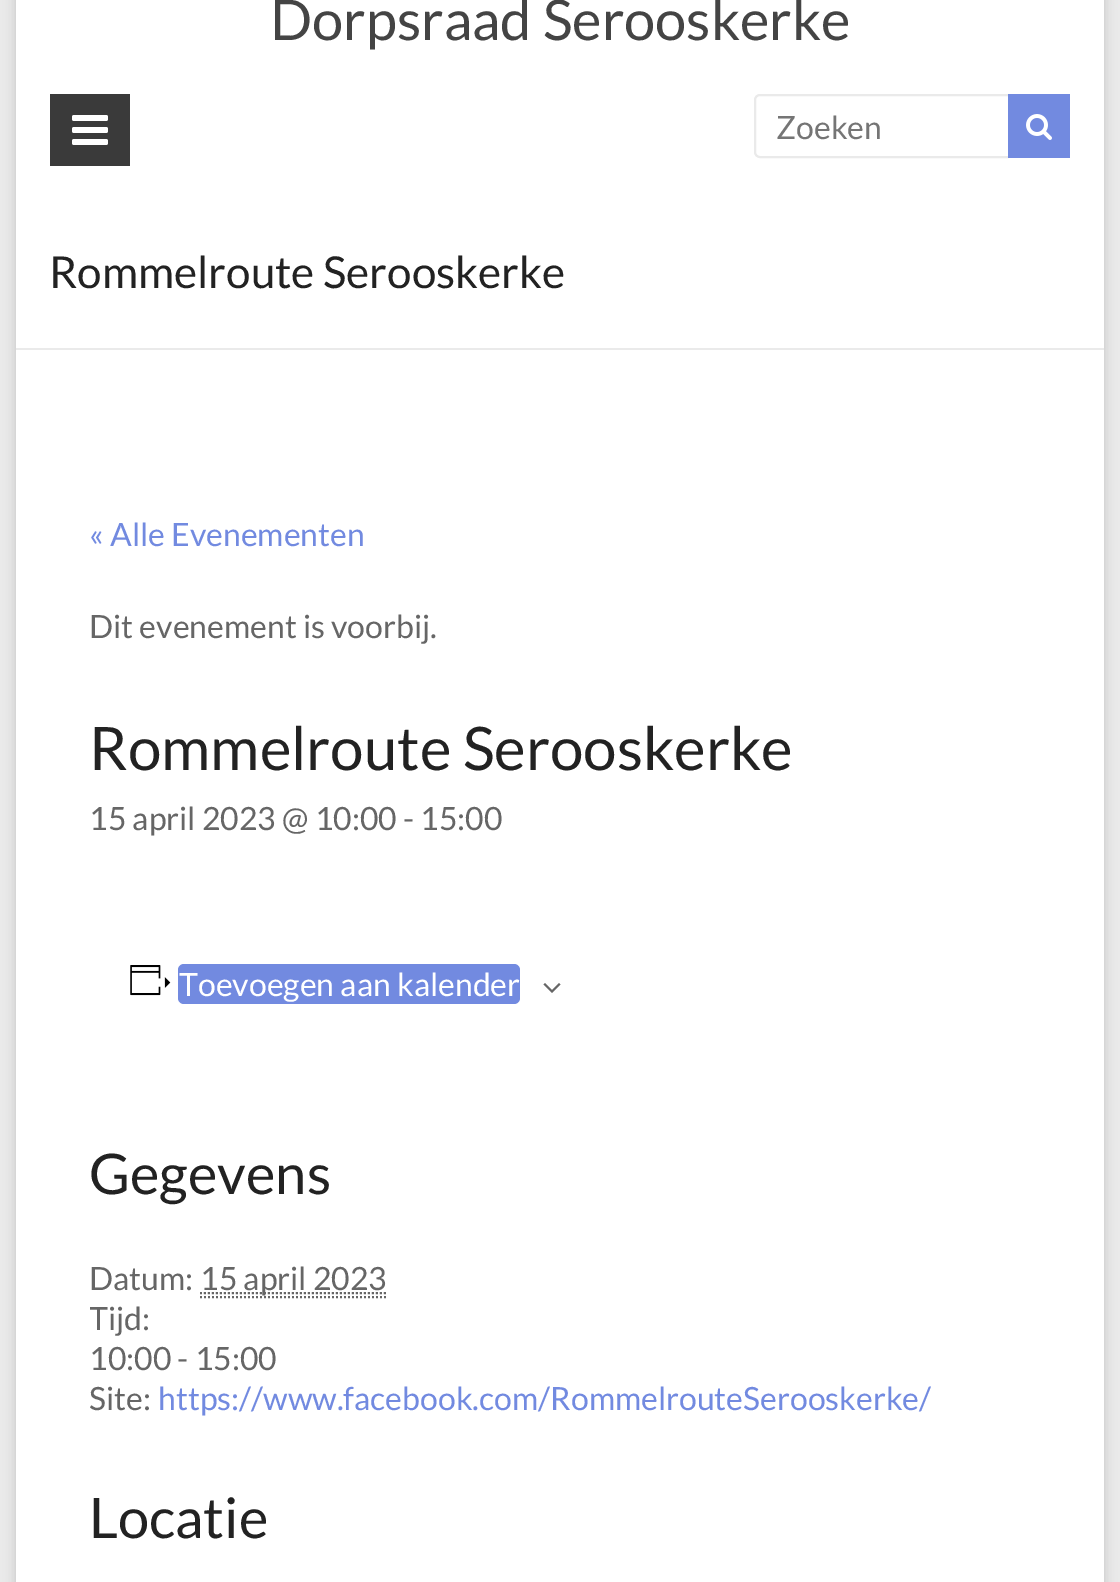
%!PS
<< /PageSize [1120 1582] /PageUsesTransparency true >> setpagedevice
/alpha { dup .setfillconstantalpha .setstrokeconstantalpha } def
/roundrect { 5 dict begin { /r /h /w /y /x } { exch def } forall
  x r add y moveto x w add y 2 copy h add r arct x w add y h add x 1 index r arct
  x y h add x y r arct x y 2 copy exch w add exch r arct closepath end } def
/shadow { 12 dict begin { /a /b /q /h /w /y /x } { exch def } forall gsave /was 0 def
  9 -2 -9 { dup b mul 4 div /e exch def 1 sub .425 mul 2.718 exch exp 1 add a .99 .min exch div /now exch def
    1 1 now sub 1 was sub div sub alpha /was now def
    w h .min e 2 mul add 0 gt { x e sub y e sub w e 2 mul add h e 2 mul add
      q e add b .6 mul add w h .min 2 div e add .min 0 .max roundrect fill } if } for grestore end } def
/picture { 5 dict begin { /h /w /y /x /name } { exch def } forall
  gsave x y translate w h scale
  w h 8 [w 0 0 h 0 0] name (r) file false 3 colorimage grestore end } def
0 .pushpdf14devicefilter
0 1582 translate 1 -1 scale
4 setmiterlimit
0.918 setgray
0 0 1120 1582 rectfill
0.392 setgray
16 -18 1088 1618 0 6 0.3 shadow
1 setgray
16 0 1088 1582 rectfill
/Lato-Regular [56 0 0 -56 0 0] selectfont
0.267 setgray
270 40 moveto (Dorpsraad Serooskerke) show
0.227 setgray
50 94 80 72 rectfill
(img1.rgb) 72 115 36 30 picture
0.918 setgray
2 setlinewidth
755 95 258 62 5 roundrect stroke
/Lato-Regular [32 0 0 -32 0 0] selectfont
0.459 setgray
776 139 moveto (Zoeken) show
0.447 0.541 0.878 setrgbcolor
1008 94 62 64 rectfill
(img2.rgb) 1026 114 26 26 picture
0.918 setgray
16 348 1088 2 rectfill
/Lato-Regular [44 0 0 -44 0 0] selectfont
0.133 setgray
49 288 moveto (Rommelroute Serooskerke) show
/Lato-Regular [32 0 0 -32 0 0] selectfont
0.447 0.541 0.878 setrgbcolor
89 546 moveto (« Alle Evenementen) show
0.4 setgray
89 638 moveto (Dit evenement is voorbij.) show
/Lato-Regular [60 0 0 -60 0 0] selectfont
0.133 setgray
89 770 moveto (Rommelroute Serooskerke) show
/Lato-Regular [32 0 0 -32 0 0] selectfont
0.4 setgray
89 830 moveto (15 april 2023 @ 10:00 - 15:00) show
(img3.rgb) 130 965 41 31 picture
0.447 0.541 0.878 setrgbcolor
178 964 342 40 6 roundrect fill
1 setgray
179 996 moveto (Toevoegen aan kalender) show
0.4 setgray
newpath 545 983 moveto 552 990 lineto 559 983 lineto 560.5 984.5 lineto 552 993 lineto 543.5 984.5 lineto closepath eofill
/Lato-Regular [56 0 0 -56 0 0] selectfont
0.133 setgray
89 1194 moveto (Gegevens) show
/Lato-Regular [32 0 0 -32 0 0] selectfont
0.4 setgray
89 1290 moveto (Datum:) show
[2 2] 0 setdash
newpath 200 1293 moveto 387 1293 lineto stroke
200 1290 moveto (15 april 2023) show
newpath 200 1297 moveto 386 1297 lineto stroke
gsave
90 878 940 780 rectclip
89 1330 moveto (Tijd:) show
grestore
89 1370 moveto (10:00 - 15:00) show
89 1410 moveto (Site:) show
0.447 0.541 0.878 setrgbcolor
158 1410 moveto (https://www.facebook.com/RommelrouteSerooskerke/) show
/Lato-Regular [56 0 0 -56 0 0] selectfont
0.133 setgray
89 1538 moveto (Locatie) show
.poppdf14devicefilter showpage
